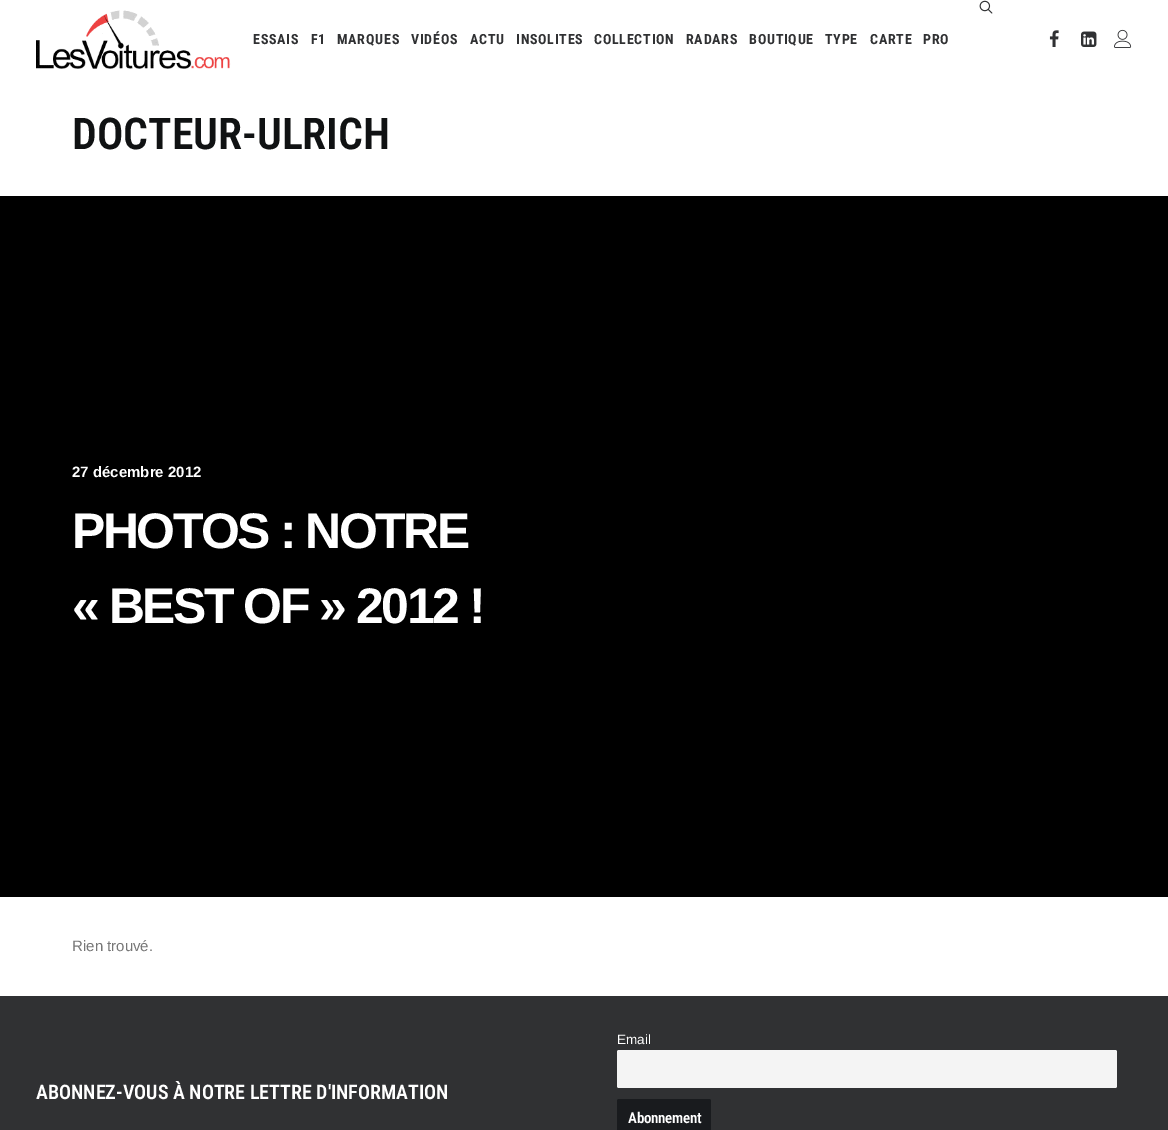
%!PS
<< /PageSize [1168 1130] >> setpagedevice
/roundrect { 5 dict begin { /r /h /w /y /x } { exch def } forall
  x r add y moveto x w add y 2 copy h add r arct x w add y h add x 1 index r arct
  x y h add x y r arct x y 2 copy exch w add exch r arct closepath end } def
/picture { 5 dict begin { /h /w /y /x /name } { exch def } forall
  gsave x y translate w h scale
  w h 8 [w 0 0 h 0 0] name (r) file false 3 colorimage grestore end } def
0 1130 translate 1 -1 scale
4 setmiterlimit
1 setgray
0 0 1168 1130 rectfill
(img1.rgb) 36 10 195 59 picture
(img2.rgb) 979 0 14 14 picture
/RobotoCondensed-Bold [14 0 0 -14 0 0] selectfont
0.188 0.192 0.2 setrgbcolor
253 44 moveto 0.75 0 (ESSAIS) ashow
311 44 moveto 0.75 0 (F1) ashow
337 44 moveto 0.75 0 (MARQUES) ashow
411 44 moveto 0.75 0 (VIDÉOS) ashow
470 44 moveto 0.75 0 (ACTU) ashow
516 44 moveto 0.75 0 (INSOLITES) ashow
594 44 moveto 0.75 0 (COLLECTION) ashow
686 44 moveto 0.75 0 (RADARS) ashow
749 44 moveto 0.75 0 (BOUTIQUE) ashow
825 44 moveto 0.75 0 (TYPE) ashow
870 44 moveto 0.75 0 (CARTE) ashow
923 44 moveto 0.75 0 (PRO) ashow
(img3.rgb) 1049 30 10 17 picture
(img4.rgb) 1081 31 16 16 picture
(img5.rgb) 1114 29 18 19 picture
/RobotoCondensed-SemiBold [43.75 0 0 -43.75 0 0] selectfont
0.063 0.071 0.075 setrgbcolor
72 149 moveto (DOCTEUR-ULRICH) show
0 setgray
0 196 1168 701 rectfill
/LiberationSans-Bold [15 0 0 -15 0 0] selectfont
1 setgray
72 477 moveto (27 décembre 2012) show
/LiberationSans-Bold [50 0 0 -50 0 0] selectfont
72 548 moveto -2.5 0 (PHOTOS : NOTRE) ashow
72 623 moveto -2.5 0 (« BEST OF » 2012 !) ashow
/LiberationSans-Regular [15 0 0 -15 0 0] selectfont
0.467 setgray
72 951 moveto (Rien trouvé.) show
0.188 0.192 0.2 setrgbcolor
0 996 1168 134 rectfill
/RobotoCondensed-SemiBold [20 0 0 -20 0 0] selectfont
1 setgray
36 1099 moveto (ABONNEZ-VOUS À NOTRE LETTRE D'INFORMATION) show
/LiberationSans-Regular [13.5 0 0 -13.5 0 0] selectfont
617 1044 moveto (Email) show
0.957 setgray
617 1050 500 38 2 roundrect fill
0.098 0.106 0.118 setrgbcolor
617 1099 94 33 2 roundrect fill
/RobotoCondensed-SemiBold [15 0 0 -15 0 0] selectfont
1 setgray
628 1123 moveto -0.25 0 (Abonnement) ashow
showpage
